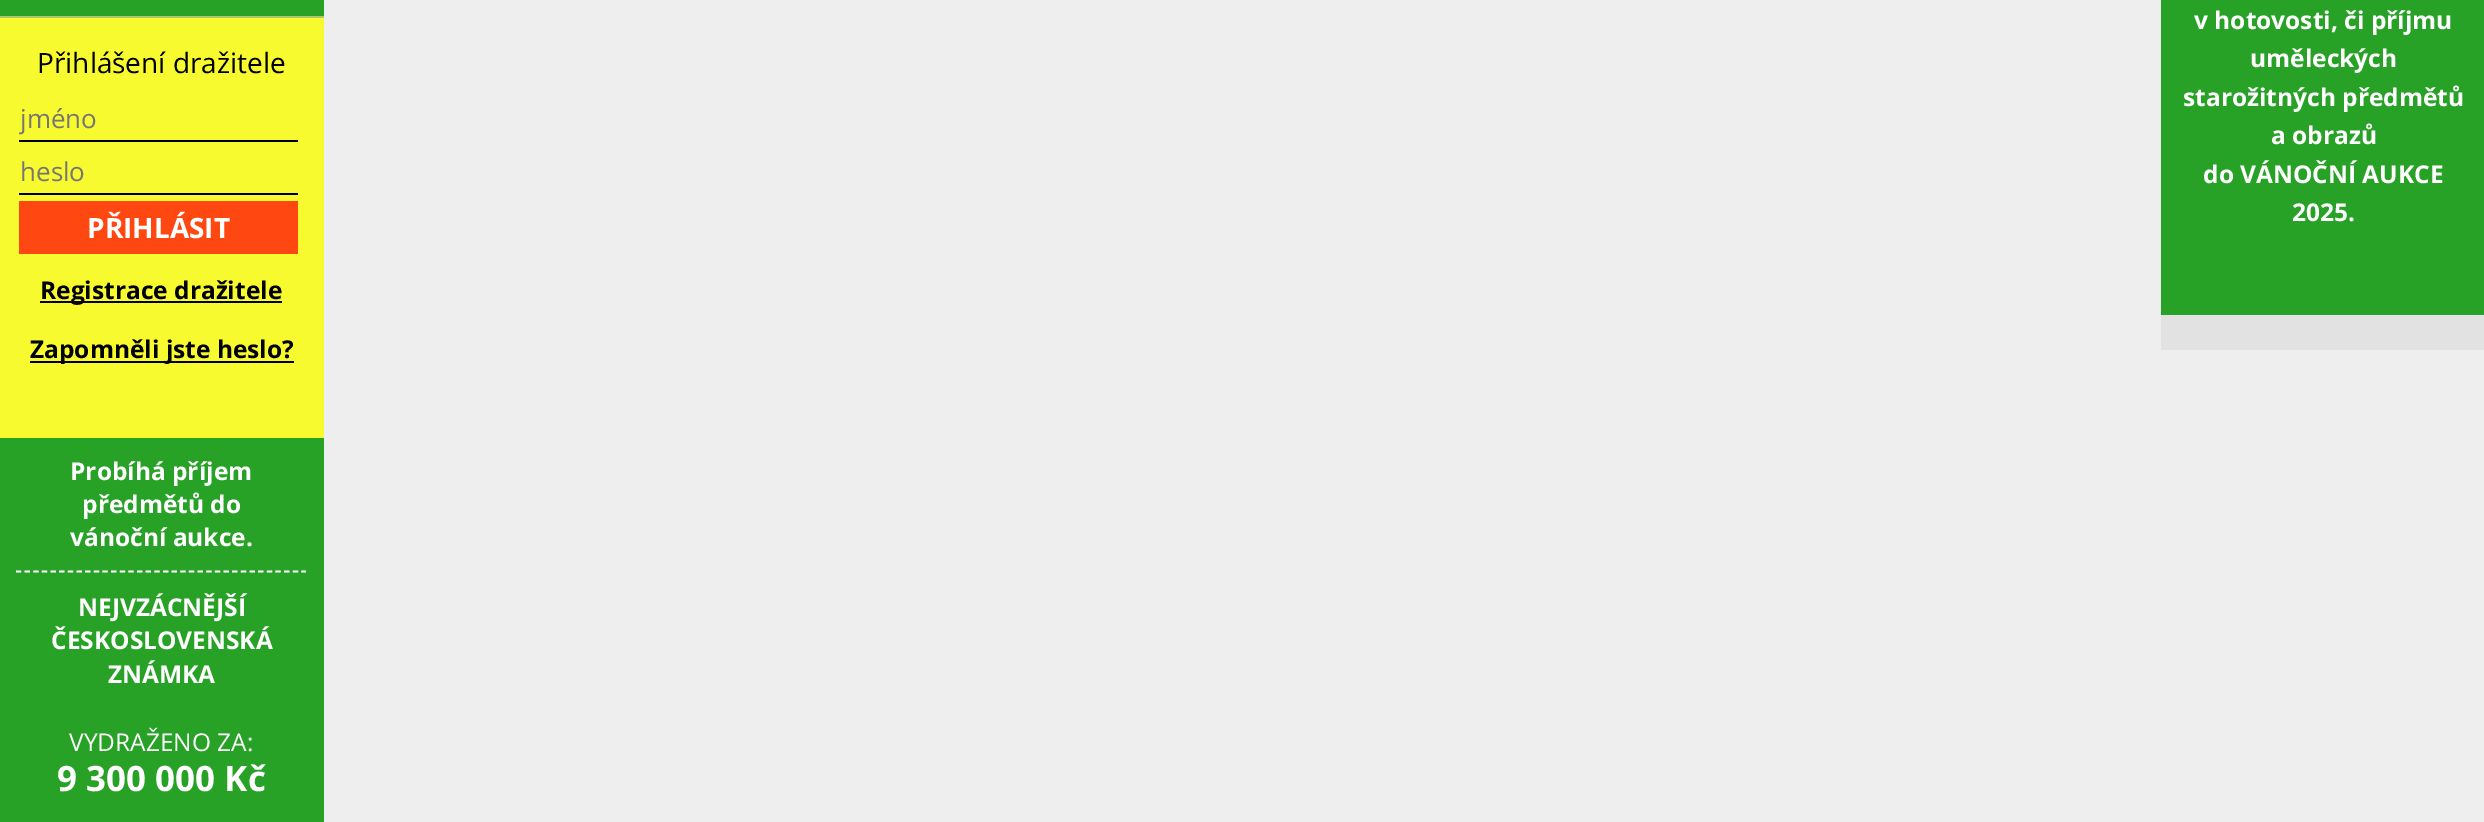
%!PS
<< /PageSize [2484 822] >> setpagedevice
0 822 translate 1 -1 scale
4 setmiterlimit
0.933 setgray
0 0 2484 822 rectfill
0.153 0.635 0.149 setrgbcolor
0 0 324 16 rectfill
0.675 0.784 0.439 setrgbcolor
0 16 324 2 rectfill
0.973 0.98 0.188 setrgbcolor
0 18 324 420 rectfill
/OpenSans-Regular [28 0 0 -28 0 0] selectfont
0 setgray
37 73 moveto (Přihlášení dražitele) show
19 140 279 2 rectfill
gsave
19 100 279 35 rectclip
/OpenSans-Regular [26 0 0 -26 0 0] selectfont
0.459 setgray
20 128 moveto (jméno) show
grestore
19 193 279 2 rectfill
/OpenSans-Regular [26 0 0 -26 0 0] selectfont
0.459 setgray
20 181 moveto (heslo) show
1 0.278 0.067 setrgbcolor
19 201 279 53 rectfill
/OpenSans-Bold [28 0 0 -28 0 0] selectfont
1 setgray
87 238 moveto (PŘIHLÁSIT) show
0 setgray
40 301 242 2 rectfill
/OpenSans-Bold [24.5 0 0 -24.5 0 0] selectfont
40 299 moveto (Registrace dražitele) show
30 361 264 2 rectfill
30 358 moveto (Zapomněli jste heslo?) show
0.153 0.635 0.149 setrgbcolor
0 438 324 384 rectfill
1 setgray
1.8 setlinewidth
[5.25 3.4] 0 setdash
newpath 16 571.5 moveto 306 571.5 lineto stroke
70 480 moveto (Probíhá příjem) show
82 513 moveto (předmětů do) show
70 546 moveto (vánoční aukce.) show
78 616 moveto (NEJVZÁCNĚJŠÍ) show
51 649 moveto (ČESKOSLOVENSKÁ) show
108 683 moveto (ZNÁMKA) show
/OpenSans-Regular [24.5 0 0 -24.5 0 0] selectfont
69 751 moveto (VYDRAŽENO ZA:) show
/OpenSans-Bold [35 0 0 -35 0 0] selectfont
57 791 moveto (9 300 000 Kč) show
0.886 setgray
2161 315 323 35 rectfill
0.153 0.635 0.149 setrgbcolor
2161 0 323 315 rectfill
/OpenSans-Bold [24.5 0 0 -24.5 0 0] selectfont
1 setgray
2194 29 moveto (v hotovosti, či příjmu) show
2250 67 moveto (uměleckých) show
2183 106 moveto (starožitných předmětů) show
2271 144 moveto (a obrazů) show
2203 183 moveto (do VÁNOČNÍ AUKCE) show
2292 221 moveto (2025.) show
showpage
